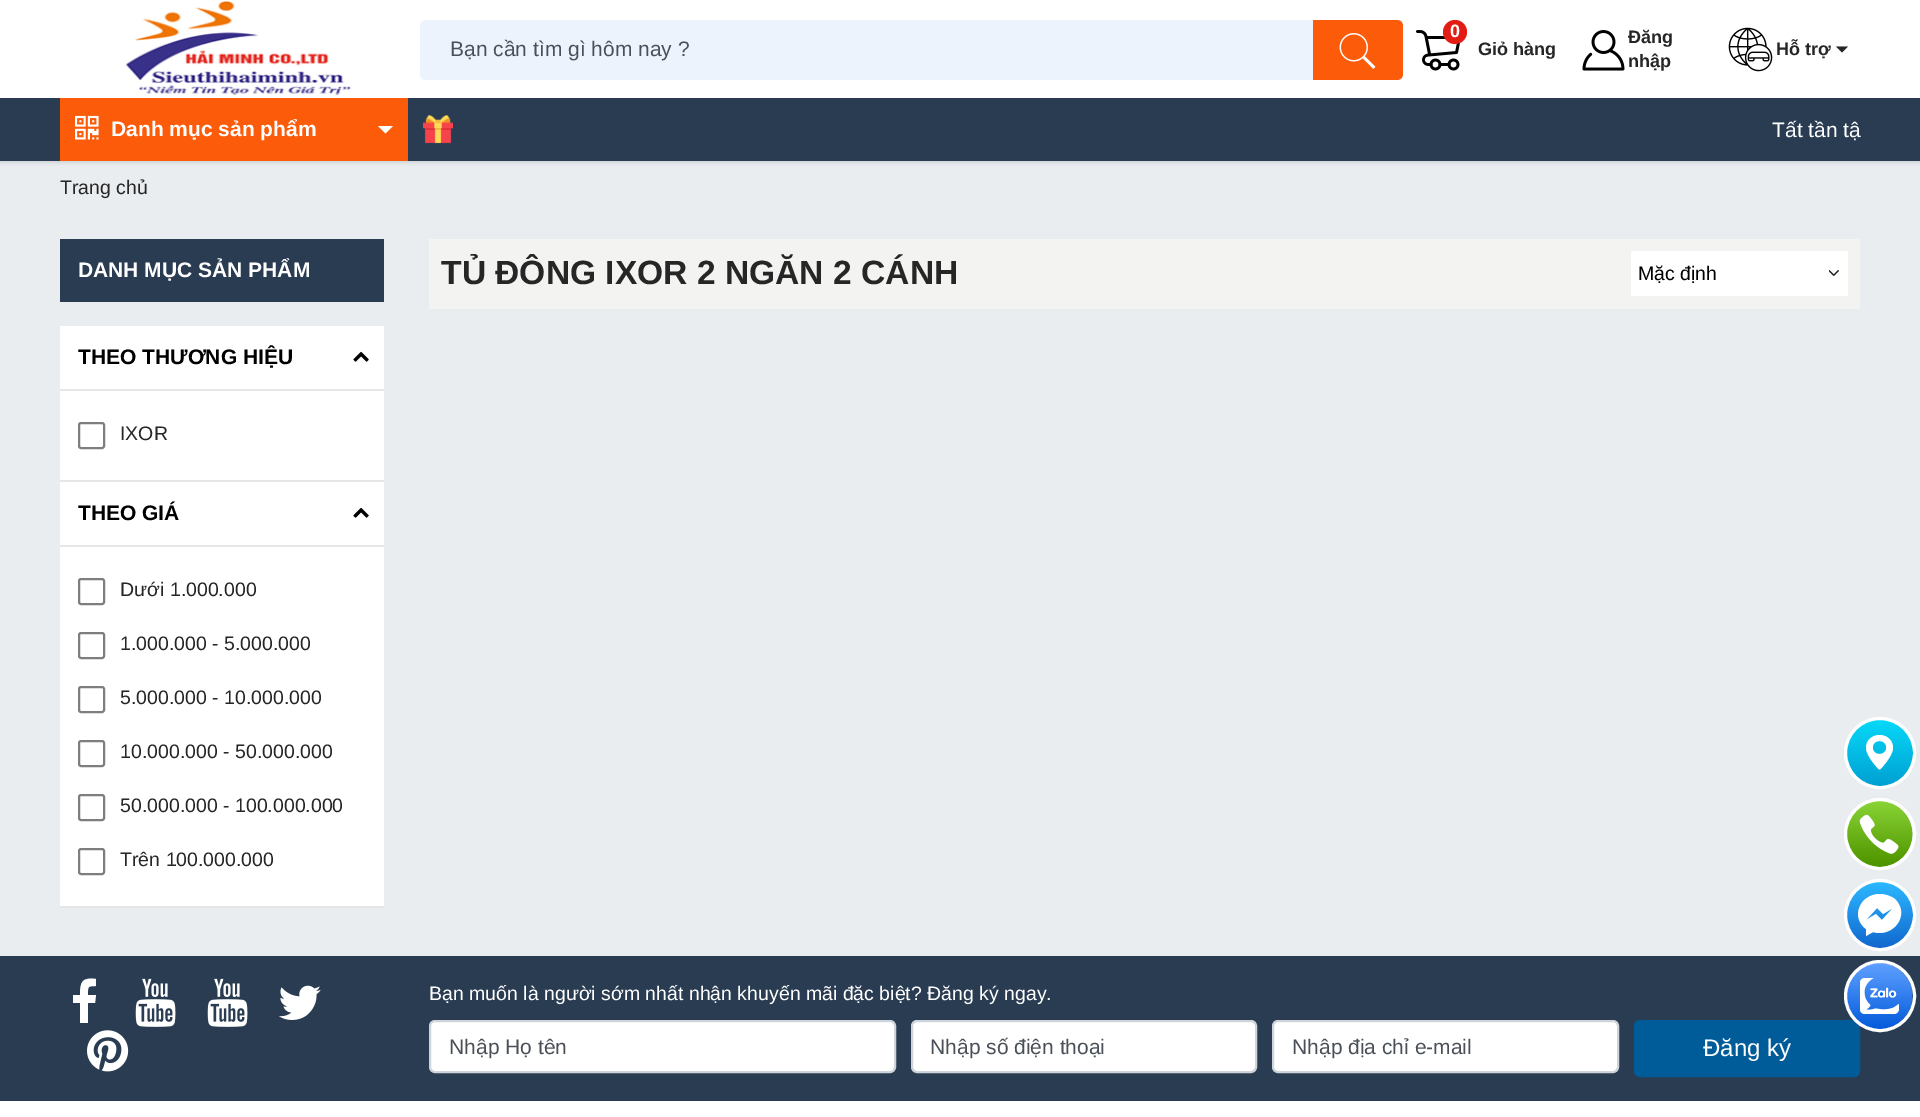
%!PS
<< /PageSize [1920 1117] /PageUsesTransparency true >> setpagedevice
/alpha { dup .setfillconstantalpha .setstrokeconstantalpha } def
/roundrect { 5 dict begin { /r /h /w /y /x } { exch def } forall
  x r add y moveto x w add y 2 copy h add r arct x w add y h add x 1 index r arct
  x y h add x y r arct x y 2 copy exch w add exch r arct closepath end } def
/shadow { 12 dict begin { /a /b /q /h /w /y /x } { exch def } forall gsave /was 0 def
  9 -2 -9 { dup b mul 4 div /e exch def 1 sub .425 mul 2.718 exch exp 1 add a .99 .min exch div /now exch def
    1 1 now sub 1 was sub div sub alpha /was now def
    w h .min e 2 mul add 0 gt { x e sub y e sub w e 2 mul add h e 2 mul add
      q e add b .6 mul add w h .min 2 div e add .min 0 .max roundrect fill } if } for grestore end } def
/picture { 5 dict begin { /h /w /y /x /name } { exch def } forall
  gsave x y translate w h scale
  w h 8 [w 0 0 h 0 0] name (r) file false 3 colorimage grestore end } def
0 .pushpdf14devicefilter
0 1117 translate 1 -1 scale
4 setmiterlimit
0.914 0.929 0.941 setrgbcolor
0 0 1920 1117 rectfill
0 setgray
0 2 1920 160 0 2 0.15 shadow
1 setgray
0 0 1920 98 rectfill
(img1.rgb) 125 1 226 95 picture
0.925 0.953 0.992 setrgbcolor
420 20 983 60 6 roundrect fill
/LiberationSans-Regular [21 0 0 -21 0 0] selectfont
0.286 0.314 0.341 setrgbcolor
450 56 moveto (Bạn cần tìm gì hôm nay ?) show
0.988 0.357 0.035 setrgbcolor
newpath 1313 20 moveto 1397 20 lineto 1400.5 20 1403 22.5 1403 26 curveto 1403 74 lineto 1403 77.5 1400.5 80 1397 80 curveto 1313 80 lineto closepath fill
(img2.rgb) 1339 33 37 36 picture
(img3.rgb) 1416 30 45 41 picture
0.886 0.106 0.078 setrgbcolor
newpath 1455 32 12 0 360 arc closepath fill
/LiberationSans-Bold [18 0 0 -18 0 0] selectfont
1 setgray
1450 37 moveto (0) show
0.149 setgray
1478 55 moveto (Giỏ hàng) show
(img4.rgb) 1582 30 43 41 picture
1628 43 moveto (Đăng) show
1628 67 moveto (nhập) show
(img5.rgb) 1728 27 45 45 picture
1776 55 moveto (Hỗ trợ) show
newpath 1836 46.5 moveto 1848 46.5 lineto 1842 52.5 lineto closepath fill
0.165 0.235 0.322 setrgbcolor
0 98 1920 63 rectfill
0.988 0.357 0.035 setrgbcolor
60 98 348 63 rectfill
(img6.rgb) 75 115 24 25 picture
/LiberationSans-Bold [21 0 0 -21 0 0] selectfont
1 setgray
111 136 moveto (Danh mục sản phẩm) show
newpath 378 126 moveto 393 126 lineto 385.5 133.5 lineto closepath fill
(img7.rgb) 423 115 30 29 picture
/LiberationSans-Regular [21 0 0 -21 0 0] selectfont
1772 137 moveto (Tất tần tậ) show
/LiberationSans-Regular [19.5 0 0 -19.5 0 0] selectfont
0.149 setgray
60 194 moveto (Trang chủ) show
0.165 0.235 0.322 setrgbcolor
60 239 324 63 rectfill
/LiberationSans-Bold [21 0 0 -21 0 0] selectfont
1 setgray
78 277 moveto (DANH MỤC SẢN PHẨM) show
60 326 324 580 rectfill
0.902 setgray
60 389 324 2 rectfill
0 setgray
78 364 moveto (THEO THƯƠNG HIỆU) show
(img8.rgb) 353 351 16 11 picture
0.902 setgray
60 480 324 2 rectfill
0.494 setgray
2 setlinewidth
79 423 25 25 2 roundrect stroke
/LiberationSans-Regular [19.5 0 0 -19.5 0 0] selectfont
0.149 setgray
120 440 moveto (IXOR) show
0.902 setgray
60 545 324 2 rectfill
/LiberationSans-Bold [21 0 0 -21 0 0] selectfont
0 setgray
78 520 moveto (THEO GIÁ) show
(img8.rgb) 353 507 16 11 picture
0.902 setgray
60 906 324 2 rectfill
0.494 setgray
79 579 25 25 2 roundrect stroke
/LiberationSans-Regular [19.5 0 0 -19.5 0 0] selectfont
0.149 setgray
120 596 moveto (Dưới 1.000.000) show
0.494 setgray
79 633 25 25 2 roundrect stroke
0.149 setgray
120 650 moveto (1.000.000 - 5.000.000) show
0.494 setgray
79 687 25 25 2 roundrect stroke
0.149 setgray
120 704 moveto (5.000.000 - 10.000.000) show
0.494 setgray
79 741 25 25 2 roundrect stroke
0.149 setgray
120 758 moveto (10.000.000 - 50.000.000) show
0.494 setgray
79 795 25 25 2 roundrect stroke
0.149 setgray
120 812 moveto (50.000.000 - 100.000.000) show
0.494 setgray
79 849 25 25 2 roundrect stroke
0.149 setgray
120 866 moveto (Trên 100.000.000) show
0.953 0.957 0.945 setrgbcolor
429 239 1431 70 rectfill
/LiberationSans-Bold [33.6 0 0 -33.6 0 0] selectfont
0.149 setgray
441 284 moveto (TỦ ĐÔNG IXOR 2 NGĂN 2 CÁNH) show
1 setgray
1631 251 217 45 rectfill
/LiberationSans-Regular [19.5 0 0 -19.5 0 0] selectfont
0 setgray
1638 280 moveto (Mặc định) show
(img9.rgb) 1829 270 10 6 picture
gsave newpath 1879.5 753 33 0 360 arc closepath clip newpath
<< /ShadingType 2 /ColorSpace /DeviceRGB /Coords [1880 720 1880 786] /Extend [true true] /Function << /FunctionType 2 /Domain [0 1] /C0 [0.027 0.847 0.973] /C1 [0 0.627 0.824] /N 1 >> >> shfill grestore
1 setgray
newpath 1879.5 735 moveto 1872 735 1866 740.5 1866 747.5 curveto 1866 756 1878 768.5 1878.5 769 curveto 1879 769.5 1880 769.5 1880.5 769 curveto 1881 768.5 1893 756 1893 747.5 curveto 1893 740.5 1887 735 1879.5 735 curveto closepath 1879.5 754 moveto 1870.5 754 1870.5 741 1879.5 741 curveto 1888.5 741 1888.5 754 1879.5 754 curveto closepath fill
3 setlinewidth
newpath 1880 753 34.5 0 360 arc closepath stroke
(img10.rgb) 1847 801 66 66 picture
newpath 1880 834 34.5 0 360 arc closepath stroke
gsave newpath 1879.5 915 33 0 360 arc closepath clip newpath
<< /ShadingType 2 /ColorSpace /DeviceRGB /Coords [1879 947 1879 883] /Extend [true true] /Function << /FunctionType 2 /Domain [0 1] /C0 [0.067 0.408 0.812] /C1 [0.173 0.718 1] /N 1 >> >> shfill grestore
newpath 1880 894 moveto 1860 894 1850 917 1866 929 curveto 1866 936 lineto 1873 932 lineto 1893 938 1911 915 1895 899 curveto 1891 896 1885 894 1880 894 curveto closepath 1882 920 moveto 1876 914 lineto 1866 920 lineto 1877 908 lineto 1883 914 lineto 1893 908 lineto closepath eofill
newpath 1880 915 34.5 0 360 arc closepath stroke
0.165 0.235 0.322 setrgbcolor
0 956 1920 145 rectfill
0 0.357 0.6 setrgbcolor
1635 1021 224 55 5 roundrect gsave fill grestore
2 setlinewidth
stroke
(img11.rgb) 1847 963 66 66 picture
1 setgray
3 setlinewidth
newpath 1880 996 34.5 0 360 arc closepath stroke
newpath 96 979 moveto 96 986 lineto 87 986 88 987 88 995 curveto 96 995 lineto 95 1003 lineto 88 1003 lineto 88 1023 lineto 80 1023 lineto 80 1003 lineto 73 1003 lineto 73 995 lineto 80 995 lineto 80 982 82 977 96 979 curveto closepath fill
(img12.rgb) 135 978 41 49 picture
(img12.rgb) 207 978 41 49 picture
(img13.rgb) 278 985 43 35 picture
(img14.rgb) 87 1030 42 42 picture
429 1000 moveto (Bạn muốn là người sớm nhất nhận khuyến mãi đặc biệt? Đăng ký ngay.) show
430 1021 465 51 5 roundrect gsave fill grestore
0.808 0.831 0.855 setrgbcolor
2 setlinewidth
stroke
/LiberationSans-Regular [21 0 0 -21 0 0] selectfont
0.286 0.314 0.341 setrgbcolor
449 1054 moveto (Nhập Họ tên) show
1 setgray
912 1021 344 51 5 roundrect gsave fill grestore
0.808 0.831 0.855 setrgbcolor
stroke
0.286 0.314 0.341 setrgbcolor
930 1054 moveto (Nhập số điện thoại) show
1 setgray
1273 1021 345 51 5 roundrect gsave fill grestore
0.808 0.831 0.855 setrgbcolor
stroke
0.286 0.314 0.341 setrgbcolor
1292 1054 moveto (Nhập địa chỉ e-mail) show
/LiberationSans-Regular [24 0 0 -24 0 0] selectfont
1 setgray
1703 1056 moveto (Đăng ký) show
0 1101 1920 16 rectfill
.poppdf14devicefilter showpage
